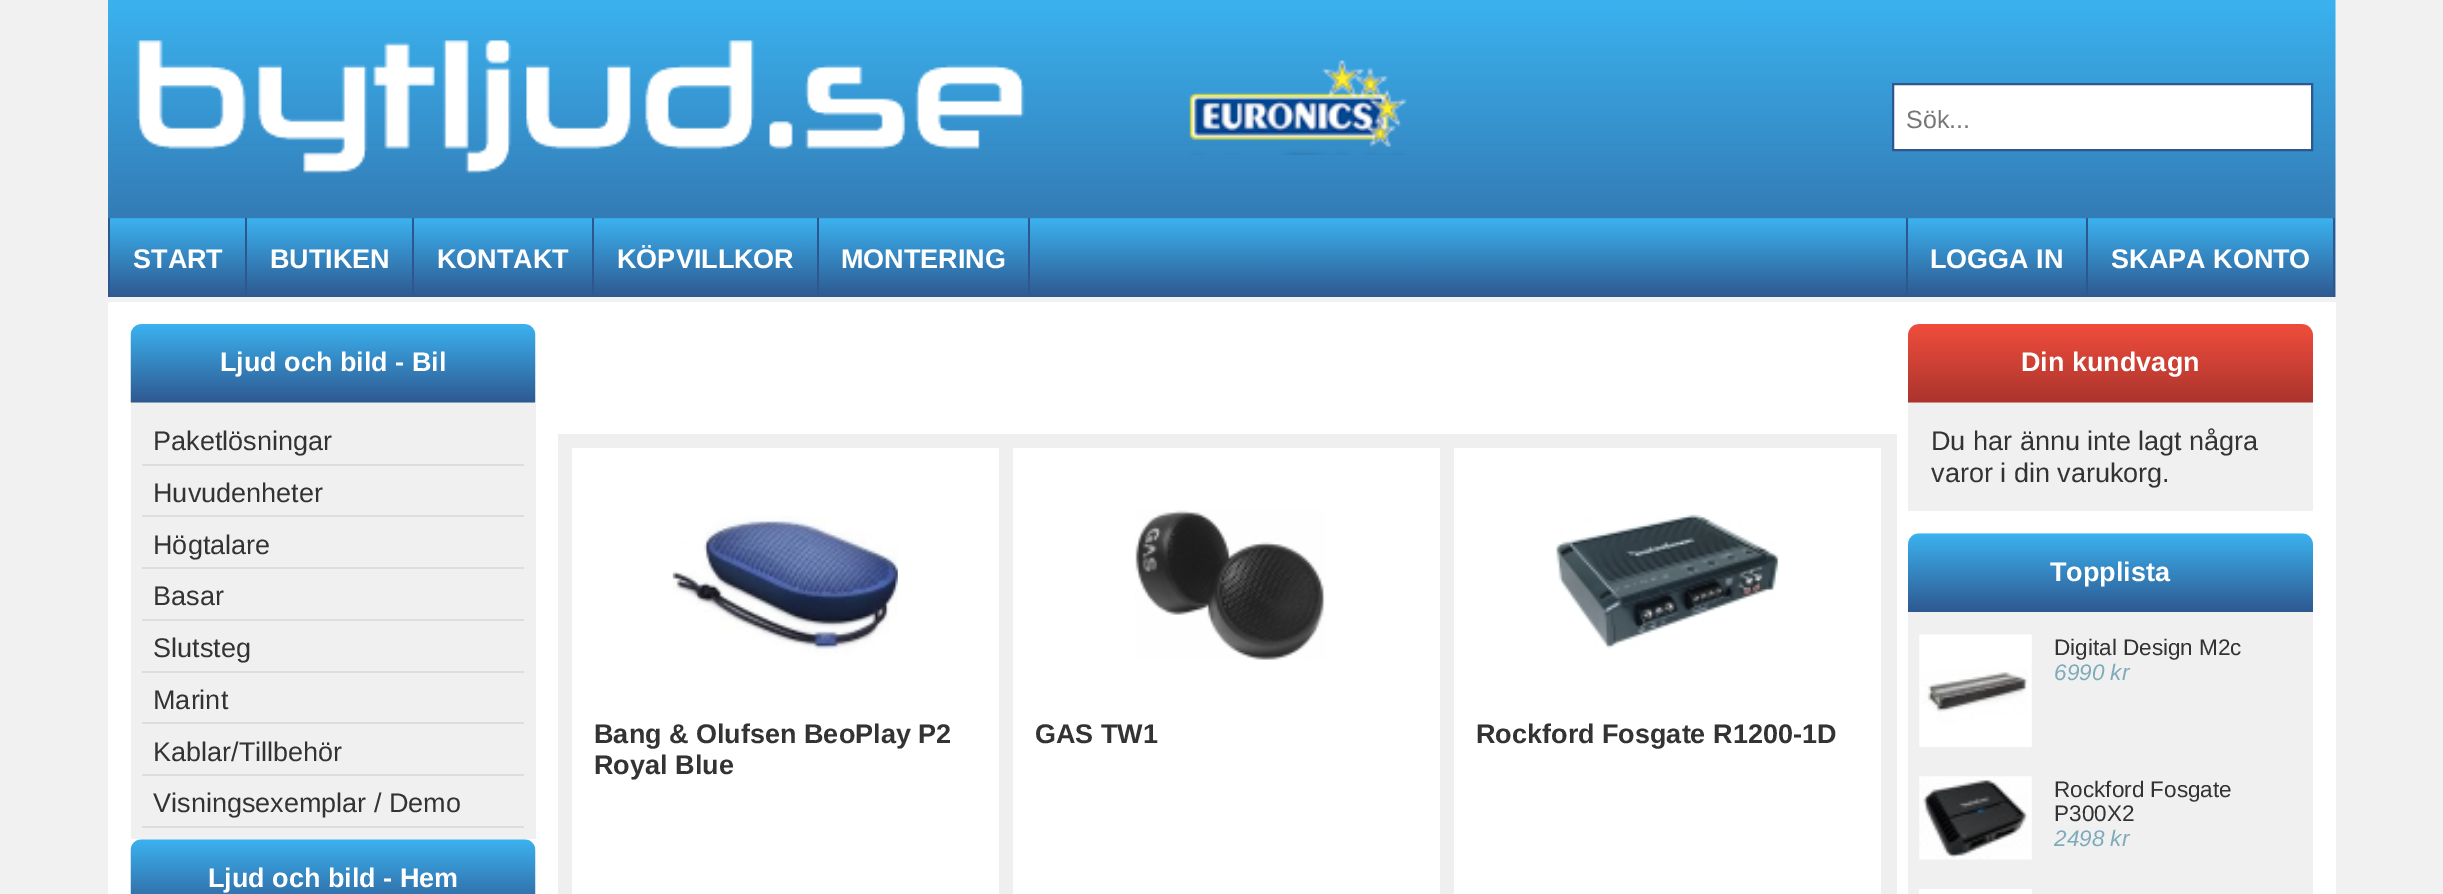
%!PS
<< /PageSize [2443 894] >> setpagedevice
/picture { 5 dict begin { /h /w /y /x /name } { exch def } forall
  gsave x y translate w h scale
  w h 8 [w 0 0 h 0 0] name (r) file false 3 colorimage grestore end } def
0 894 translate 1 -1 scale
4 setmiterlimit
0.945 setgray
0 0 2443 894 rectfill
(img1.rgb) 108 0 2228 297 picture
(img2.rgb) 136 40 889 134 picture
(img3.rgb) 1189 60 218 95 picture
1 setgray
newpath 1893 84 moveto 2312 84 lineto 2312 150 lineto 1893 150 lineto closepath gsave fill grestore
0.18 0.341 0.561 setrgbcolor
2 setlinewidth
stroke
/LiberationSans-Regular [25 0 0 -25 0 0] selectfont
0.467 setgray
1906 128 moveto (Sök...) show
(img4.rgb) 110 218 2223 79 picture
0.18 0.341 0.561 setrgbcolor
245 218 2 79 rectfill
108 218 2 79 rectfill
/LiberationSans-Bold [27 0 0 -27 0 0] selectfont
1 setgray
133 268 moveto (START) show
0.18 0.341 0.561 setrgbcolor
412 218 2 79 rectfill
1 setgray
270 268 moveto (BUTIKEN) show
0.18 0.341 0.561 setrgbcolor
592 218 2 79 rectfill
1 setgray
437 268 moveto (KONTAKT) show
0.18 0.341 0.561 setrgbcolor
817 218 2 79 rectfill
1 setgray
617 268 moveto (KÖPVILLKOR) show
0.18 0.341 0.561 setrgbcolor
1028 218 2 79 rectfill
1 setgray
841 268 moveto (MONTERING) show
0.18 0.341 0.561 setrgbcolor
2086 218 2 79 rectfill
1906 218 2 79 rectfill
1 setgray
1930 268 moveto (LOGGA IN) show
0.18 0.341 0.561 setrgbcolor
2333 218 2 79 rectfill
1 setgray
2111 268 moveto (SKAPA KONTO) show
108 302 2228 592 rectfill
(img5.rgb) 130 324 406 79 picture
220 371 moveto (Ljud och bild - Bil) show
0.941 setgray
131 403 405 436 rectfill
0.867 setgray
142 464 382 2 rectfill
/LiberationSans-Regular [27 0 0 -27 0 0] selectfont
0.2 setgray
153 450 moveto (Paketlösningar) show
0.867 setgray
142 515 382 2 rectfill
0.2 setgray
153 502 moveto (Huvudenheter) show
0.867 setgray
142 567 382 2 rectfill
0.2 setgray
153 554 moveto (Högtalare) show
0.867 setgray
142 619 382 2 rectfill
0.2 setgray
153 605 moveto (Basar) show
0.867 setgray
142 671 382 2 rectfill
0.2 setgray
153 657 moveto (Slutsteg) show
0.867 setgray
142 722 382 2 rectfill
0.2 setgray
153 709 moveto (Marint) show
0.867 setgray
142 774 382 2 rectfill
0.2 setgray
153 761 moveto (Kablar/Tillbehör) show
0.867 setgray
142 826 382 2 rectfill
0.2 setgray
153 812 moveto (Visningsexemplar / Demo) show
(img6.rgb) 130 839 406 55 picture
/LiberationSans-Bold [27 0 0 -27 0 0] selectfont
1 setgray
208 887 moveto (Ljud och bild - Hem) show
0.937 setgray
558 434 1339 460 rectfill
1 setgray
572 448 427 446 rectfill
(img7.rgb) 672 516 226 141 picture
0.2 setgray
594 743 moveto (Bang & Olufsen BeoPlay P2) show
594 774 moveto (Royal Blue) show
1 setgray
1013 448 427 446 rectfill
(img8.rgb) 1135 510 191 150 picture
0.2 setgray
1035 743 moveto (GAS TW1) show
1 setgray
1454 448 427 446 rectfill
(img9.rgb) 1555 514 225 135 picture
0.2 setgray
1476 743 moveto (Rockford Fosgate R1200-1D) show
(img10.rgb) 1908 324 405 79 picture
1 setgray
2021 371 moveto (Din kundvagn) show
0.941 setgray
1908 403 405 108 rectfill
/LiberationSans-Regular [27 0 0 -27 0 0] selectfont
0.2 setgray
1931 450 moveto (Du har ännu inte lagt några) show
1931 482 moveto (varor i din varukorg.) show
(img11.rgb) 1908 533 405 79 picture
/LiberationSans-Bold [27 0 0 -27 0 0] selectfont
1 setgray
2050 581 moveto (Topplista) show
0.941 setgray
1908 612 405 282 rectfill
(img12.rgb) 1919 634 113 113 picture
/LiberationSans-Regular [22.5 0 0 -22.5 0 0] selectfont
0.2 setgray
2054 655 moveto (Digital Design M2c) show
/LiberationSans-Italic [22.5 0 0 -22.5 0 0] selectfont
0.494 0.671 0.729 setrgbcolor
2054 680 moveto (6990 kr) show
(img13.rgb) 1919 776 113 84 picture
/LiberationSans-Regular [22.5 0 0 -22.5 0 0] selectfont
0.2 setgray
2054 797 moveto (Rockford Fosgate) show
2054 821 moveto (P300X2) show
/LiberationSans-Italic [22.5 0 0 -22.5 0 0] selectfont
0.494 0.671 0.729 setrgbcolor
2054 846 moveto (2498 kr) show
1 setgray
1919 889 113 5 rectfill
showpage
